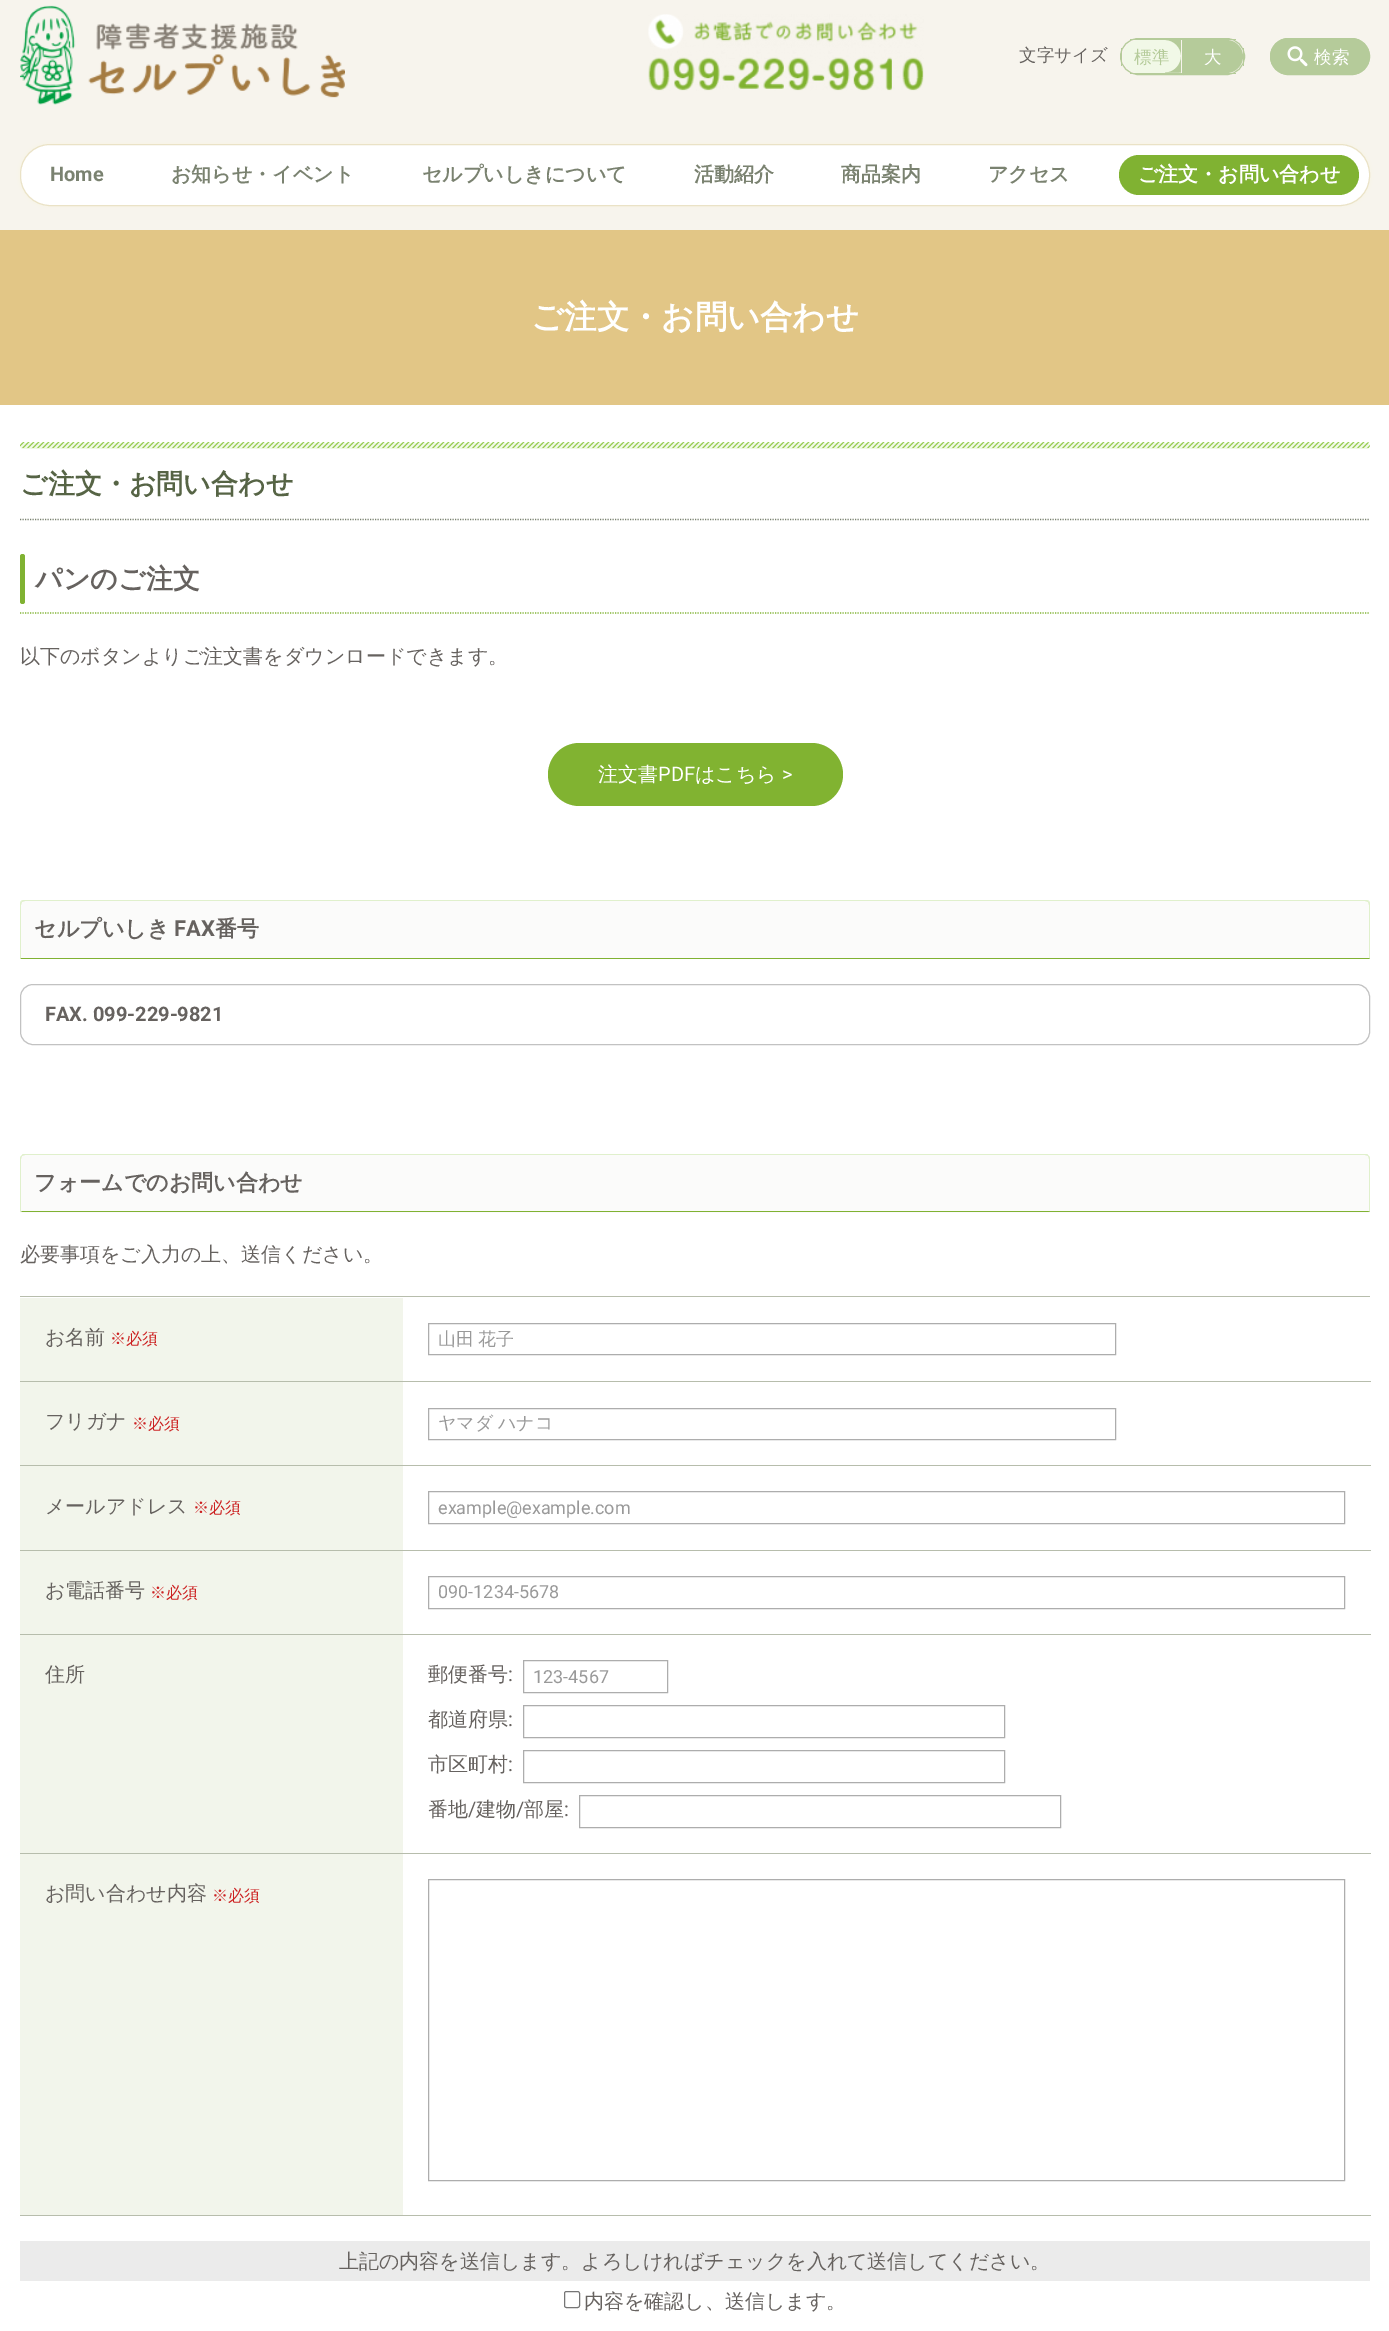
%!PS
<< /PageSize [1389 2331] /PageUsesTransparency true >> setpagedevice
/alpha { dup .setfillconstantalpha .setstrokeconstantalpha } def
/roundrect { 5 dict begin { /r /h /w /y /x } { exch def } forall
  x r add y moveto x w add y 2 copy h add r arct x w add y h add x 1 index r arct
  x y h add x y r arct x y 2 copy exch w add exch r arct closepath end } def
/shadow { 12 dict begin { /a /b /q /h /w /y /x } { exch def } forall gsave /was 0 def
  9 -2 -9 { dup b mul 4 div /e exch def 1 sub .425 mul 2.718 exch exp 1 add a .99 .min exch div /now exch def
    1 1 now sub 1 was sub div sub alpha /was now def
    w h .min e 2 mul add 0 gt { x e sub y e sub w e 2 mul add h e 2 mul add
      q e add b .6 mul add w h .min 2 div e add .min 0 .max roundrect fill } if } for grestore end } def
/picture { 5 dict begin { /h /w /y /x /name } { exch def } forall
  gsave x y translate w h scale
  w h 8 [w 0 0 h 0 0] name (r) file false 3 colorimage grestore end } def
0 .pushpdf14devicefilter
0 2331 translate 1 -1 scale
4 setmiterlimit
1 setgray
0 0 1389 2331 rectfill
0.969 0.957 0.929 setrgbcolor
0 0 1389 230 rectfill
(img1.rgb) 20 5 325 100 picture
(img2.rgb) 648 14 276 77 picture
/WenQuanYiZenHei-Medium [17.5 0 0 -17.5 0 0] selectfont
0.4 0.384 0.373 setrgbcolor
1019 61 moveto (文字サイズ) show
0.945 0.973 0.906 setrgbcolor
newpath 1139.5 40 moveto 1181 40 lineto 1181 73 lineto 1139.5 73 lineto 1130.5 73 1123 65.5 1123 56.5 curveto 1123 47.5 1130.5 40 1139.5 40 curveto closepath fill
0.71 0.796 0.604 setrgbcolor
newpath 1165 72.5 moveto 1174 72.5 1181 65 1181 56 curveto 1181 72.5 lineto closepath 1165 40 moveto 1181 40 lineto 1181 56 lineto 1181 47.5 1174 40 1165 40 curveto closepath eofill
newpath 1181 72.5 moveto 1177 73 lineto 1165 73 lineto 1165 72.5 lineto closepath fill
newpath 1138.5 38.5 moveto 1182.5 38.5 lineto 1182.5 74.5 lineto 1138.5 74.5 lineto 1128.5 74.5 1120.5 66.5 1120.5 56.5 curveto 1120.5 46.5 1128.5 38.5 1138.5 38.5 curveto closepath stroke
1130 39 53 1 rectfill
1130 73 53 1 rectfill
1121 48 1 18 rectfill
1134 63 moveto (標準) show
newpath 1184 40 moveto 1226.5 40 lineto 1235.5 40 1243 47.5 1243 56.5 curveto 1243 65.5 1235.5 73 1226.5 73 curveto 1184 73 lineto closepath fill
newpath 1183.5 38.5 moveto 1226.5 38.5 lineto 1236.5 38.5 1244.5 46.5 1244.5 56.5 curveto 1244.5 66.5 1236.5 74.5 1226.5 74.5 curveto 1183.5 74.5 lineto closepath stroke
1183 39 53 1 rectfill
1243 48 1 18 rectfill
1183 73 53 1 rectfill
1 setgray
1204 63 moveto (大) show
0.71 0.796 0.604 setrgbcolor
1270 38 100 37 18.5 roundrect fill
(img3.rgb) 1287 46 21 21 picture
3 setlinewidth
1271.5 39.5 97 34 17 roundrect stroke
1 setgray
1314 63 moveto (検索) show
0.98 0.949 0.882 setrgbcolor
20 144 1350 62 30 3 0.9 shadow
1 setgray
20.5 144.5 1349 61 29.5 roundrect gsave fill grestore
0.918 0.886 0.776 setrgbcolor
1 setlinewidth
stroke
/Roboto-Bold [20 0 0 -20 0 0] selectfont
0.478 0.51 0.439 setrgbcolor
50 181 moveto (Home) show
/WenQuanYiZenHei-Bold [20 0 0 -20 0 0] selectfont
171 181 moveto (お知らせ・イベント) show
422 181 moveto (セルプいしきについて) show
694 181 moveto (活動紹介) show
841 181 moveto (商品案内) show
988 181 moveto (アクセス) show
0.502 0.698 0.196 setrgbcolor
1119 155 240 40 20 roundrect fill
1 setgray
1138 181 moveto (ご注文・お問い合わせ) show
0.886 0.776 0.525 setrgbcolor
0 230 1389 175 rectfill
/WenQuanYiZenHei-Bold [32.4 0 0 -32.4 0 0] selectfont
1 setgray
531 328 moveto (ご注文・お問い合わせ) show
0.478 0.51 0.439 setrgbcolor
1.2 setlinewidth
[1.25 1.25] 0 setdash
newpath 20 519.5 moveto 1370 519.5 lineto stroke
0.945 0.973 0.906 setrgbcolor
20 443 1350 6 3 roundrect fill
(img4.rgb) 20 442 1350 7 picture
/WenQuanYiZenHei-Bold [27 0 0 -27 0 0] selectfont
0.337 0.392 0.271 setrgbcolor
20 493 moveto (ご注文・お問い合わせ) show
0.502 0.698 0.196 setrgbcolor
newpath 20 613 moveto 1370 613 lineto stroke
20 554 5 50 2.5 roundrect fill
0.4 0.384 0.373 setrgbcolor
35 588 moveto (パンのご注文) show
/WenQuanYiZenHei-Medium [20 0 0 -20 0 0] selectfont
20 663 moveto (以下のボタンよりご注文書をダウンロードできます。) show
0.506 0.702 0.192 setrgbcolor
548 743 295 63 31.5 roundrect fill
1 setgray
598 781 moveto (注文書) show
/Roboto-Regular [20 0 0 -20 0 0] selectfont
658 781 moveto (PDF) show
/WenQuanYiZenHei-Medium [20 0 0 -20 0 0] selectfont
695 781 moveto (はこちら) show
/Roboto-Regular [20 0 0 -20 0 0] selectfont
782 781 moveto (>) show
0.984 0.984 0.98 setrgbcolor
newpath 25 900 moveto 1365 900 lineto 1368 900 1370 902 1370 905 curveto 1370 959 lineto 20 959 lineto 20 905 lineto 20 902 22 900 25 900 curveto closepath fill
0.878 0.941 0.8 setrgbcolor
newpath 25 900 moveto 24 900 22 900 21 901 curveto 22 902 lineto 25 901 lineto 1365 901 lineto 1368 902 lineto 1369 901 lineto 1368 900 1366 900 1365 900 curveto closepath fill
newpath 1370 959 moveto 1370 905 lineto 1370 904 1370 902 1369 901 curveto 1368 902 lineto 1369 905 lineto 1369 958 lineto closepath fill
0.502 0.698 0.196 setrgbcolor
newpath 1370 959 moveto 20 959 lineto 21 958 lineto 1369 958 lineto closepath fill
0.878 0.941 0.8 setrgbcolor
newpath 20 959 moveto 21 958 lineto 21 905 lineto 22 902 lineto 21 901 lineto 20 902 20 904 20 905 curveto closepath fill
/WenQuanYiZenHei-Bold [22 0 0 -22 0 0] selectfont
0.4 0.384 0.373 setrgbcolor
34 936 moveto (セルプいしき) show
/Roboto-Bold [22 0 0 -22 0 0] selectfont
174 936 moveto (FAX) show
/WenQuanYiZenHei-Bold [22 0 0 -22 0 0] selectfont
215 936 moveto (番号) show
0.761 setgray
1 setlinewidth
[] 0 setdash
20.5 984.5 1349 60 12.5 roundrect stroke
/Roboto-Bold [20 0 0 -20 0 0] selectfont
0.4 0.384 0.373 setrgbcolor
45 1021 moveto (FAX. 099-229-9821) show
0.984 0.984 0.98 setrgbcolor
newpath 25 1154 moveto 1365 1154 lineto 1368 1154 1370 1156 1370 1159 curveto 1370 1213 lineto 20 1213 lineto 20 1159 lineto 20 1156 22 1154 25 1154 curveto closepath fill
0.878 0.941 0.8 setrgbcolor
newpath 25 1154 moveto 24 1154 22 1154 22 1155 curveto 22 1156 lineto 25 1155 lineto 1365 1155 lineto 1368 1156 lineto 1368 1155 lineto 1368 1154 1366 1154 1365 1154 curveto closepath fill
newpath 1368 1155 moveto 1369 1156 1370 1157 1370 1159 curveto 1370 1212 lineto 1368 1211 lineto 1369 1211 lineto 1369 1159 lineto 1368 1156 lineto closepath fill
0.502 0.698 0.196 setrgbcolor
newpath 1370 1212 moveto 20 1212 lineto 22 1211 lineto 1368 1211 lineto closepath fill
0.878 0.941 0.8 setrgbcolor
newpath 20 1159 moveto 20 1212 lineto 22 1211 lineto 21 1211 lineto 21 1159 lineto 22 1156 lineto 22 1155 lineto 21 1156 20 1157 20 1159 curveto closepath fill
/WenQuanYiZenHei-Bold [22 0 0 -22 0 0] selectfont
0.4 0.384 0.373 setrgbcolor
34 1190 moveto (フォームでのお問い合わせ) show
/WenQuanYiZenHei-Medium [20 0 0 -20 0 0] selectfont
20 1261 moveto (必要事項をご入力の上、送信ください。) show
0.718 0.741 0.675 setrgbcolor
20 1296 1350 1 rectfill
20 1381 1351 1 rectfill
0.949 0.961 0.922 setrgbcolor
20 1298 383 83 rectfill
0.4 0.384 0.373 setrgbcolor
45 1344 moveto (お名前) show
/WenQuanYiZenHei-Medium [16 0 0 -16 0 0] selectfont
0.8 0.133 0.133 setrgbcolor
110 1344 moveto (※必須) show
0.678 setgray
428.5 1323.5 687 31 rectstroke
/WenQuanYiZenHei-Medium [18 0 0 -18 0 0] selectfont
0.6 setgray
438 1345 moveto -1 0 32 (山田 花子) widthshow
0.718 0.741 0.675 setrgbcolor
20 1465 1351 1 rectfill
0.949 0.961 0.922 setrgbcolor
20 1382 383 83 rectfill
/WenQuanYiZenHei-Medium [20 0 0 -20 0 0] selectfont
0.4 0.384 0.373 setrgbcolor
45 1428 moveto (フリガナ) show
/WenQuanYiZenHei-Medium [16 0 0 -16 0 0] selectfont
0.8 0.133 0.133 setrgbcolor
132 1429 moveto (※必須) show
0.678 setgray
428.5 1408.5 687 31 rectstroke
/WenQuanYiZenHei-Medium [18 0 0 -18 0 0] selectfont
0.6 setgray
438 1429 moveto -1 0 32 (ヤマダ ハナコ) widthshow
0.718 0.741 0.675 setrgbcolor
20 1550 1351 1 rectfill
0.949 0.961 0.922 setrgbcolor
20 1466 383 84 rectfill
/WenQuanYiZenHei-Medium [20 0 0 -20 0 0] selectfont
0.4 0.384 0.373 setrgbcolor
45 1513 moveto (メールアドレス) show
/WenQuanYiZenHei-Medium [16 0 0 -16 0 0] selectfont
0.8 0.133 0.133 setrgbcolor
193 1513 moveto (※必須) show
0.678 setgray
428.5 1491.5 916 32 rectstroke
/Roboto-Regular [18 0 0 -18 0 0] selectfont
0.6 setgray
438 1514 moveto (example@example.com) show
0.718 0.741 0.675 setrgbcolor
20 1634 1351 1 rectfill
0.949 0.961 0.922 setrgbcolor
20 1551 383 83 rectfill
/WenQuanYiZenHei-Medium [20 0 0 -20 0 0] selectfont
0.4 0.384 0.373 setrgbcolor
45 1597 moveto (お電話番号) show
/WenQuanYiZenHei-Medium [16 0 0 -16 0 0] selectfont
0.8 0.133 0.133 setrgbcolor
150 1598 moveto (※必須) show
0.678 setgray
428.5 1576.5 916 32 rectstroke
/Roboto-Regular [18 0 0 -18 0 0] selectfont
0.6 setgray
438 1598 moveto (090-1234-5678) show
0.718 0.741 0.675 setrgbcolor
20 1853 1351 1 rectfill
0.949 0.961 0.922 setrgbcolor
20 1635 383 218 rectfill
/WenQuanYiZenHei-Medium [20 0 0 -20 0 0] selectfont
0.4 0.384 0.373 setrgbcolor
45 1681 moveto (住所) show
428 1681 moveto (郵便番号) show
/Roboto-Regular [20 0 0 -20 0 0] selectfont
508 1681 moveto (:) show
0.678 setgray
523.5 1660.5 144 32 rectstroke
/Roboto-Regular [18 0 0 -18 0 0] selectfont
0.6 setgray
533 1683 moveto (123-4567) show
/WenQuanYiZenHei-Medium [20 0 0 -20 0 0] selectfont
0.4 0.384 0.373 setrgbcolor
428 1726 moveto (都道府県) show
/Roboto-Regular [20 0 0 -20 0 0] selectfont
508 1726 moveto (:) show
0.678 setgray
523.5 1705.5 481 32 rectstroke
/WenQuanYiZenHei-Medium [20 0 0 -20 0 0] selectfont
0.4 0.384 0.373 setrgbcolor
428 1771 moveto (市区町村) show
/Roboto-Regular [20 0 0 -20 0 0] selectfont
508 1771 moveto (:) show
0.678 setgray
523.5 1750.5 481 32 rectstroke
/WenQuanYiZenHei-Medium [20 0 0 -20 0 0] selectfont
0.4 0.384 0.373 setrgbcolor
428 1816 moveto (番地) show
/Roboto-Regular [20 0 0 -20 0 0] selectfont
468 1816 moveto (/) show
/WenQuanYiZenHei-Medium [20 0 0 -20 0 0] selectfont
476 1816 moveto (建物) show
/Roboto-Regular [20 0 0 -20 0 0] selectfont
516 1816 moveto (/) show
/WenQuanYiZenHei-Medium [20 0 0 -20 0 0] selectfont
524 1816 moveto (部屋) show
/Roboto-Regular [20 0 0 -20 0 0] selectfont
564 1816 moveto (:) show
0.678 setgray
579.5 1795.5 481 32 rectstroke
0.718 0.741 0.675 setrgbcolor
20 2215 1351 1 rectfill
0.949 0.961 0.922 setrgbcolor
20 1854 383 361 rectfill
/WenQuanYiZenHei-Medium [20 0 0 -20 0 0] selectfont
0.4 0.384 0.373 setrgbcolor
45 1900 moveto (お問い合わせ内容) show
/WenQuanYiZenHei-Medium [16 0 0 -16 0 0] selectfont
0.8 0.133 0.133 setrgbcolor
212 1901 moveto (※必須) show
0.678 setgray
428.5 1879.5 916 301 rectstroke
0.922 setgray
20 2241 1350 40 rectfill
/WenQuanYiZenHei-Medium [20 0 0 -20 0 0] selectfont
0.4 0.384 0.373 setrgbcolor
339 2268 moveto (上記の内容を送信します。よろしければチェックを入れて送信してください。) show
0.463 setgray
564.5 2291.5 15 16 2 roundrect stroke
0.4 0.384 0.373 setrgbcolor
584 2308 moveto (内容を確認し、送信します。) show
.poppdf14devicefilter showpage
